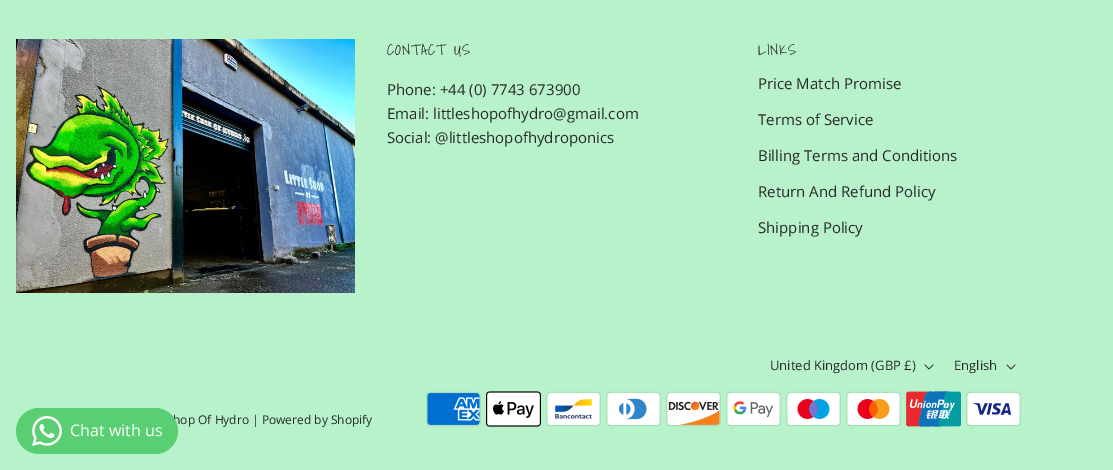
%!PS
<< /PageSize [1113 470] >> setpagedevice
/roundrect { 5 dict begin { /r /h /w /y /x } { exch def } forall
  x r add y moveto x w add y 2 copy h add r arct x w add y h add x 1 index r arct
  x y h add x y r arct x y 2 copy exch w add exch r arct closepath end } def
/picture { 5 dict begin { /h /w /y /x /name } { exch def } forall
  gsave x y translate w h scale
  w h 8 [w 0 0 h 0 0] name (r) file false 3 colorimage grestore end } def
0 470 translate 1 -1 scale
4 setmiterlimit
0.718 0.949 0.796 setrgbcolor
0 0 1113 470 rectfill
(img1.rgb) 16 39 339 254 picture
/ShadowsIntoLight-Regular [15 0 0 -15 0 0] selectfont
0.161 setgray
387 55 moveto 1 0 (CONTACT US) ashow
/OpenSans-Regular [15 0 0 -15 0 0] selectfont
387 95 moveto (Phone: +44 \(0\) 7743 673900) show
387 119 moveto (Email: littleshopofhydro@gmail.com) show
387 143 moveto (Social: @littleshopofhydroponics) show
/ShadowsIntoLight-Regular [15 0 0 -15 0 0] selectfont
758 55 moveto 1 0 (LINKS) ashow
/OpenSans-Regular [15 0 0 -15 0 0] selectfont
758 89 moveto (Price Match Promise) show
758 125 moveto (Terms of Service) show
758 161 moveto (Billing Terms and Conditions) show
758 197 moveto (Return And Refund Policy) show
758 233 moveto (Shipping Policy) show
/OpenSans-Regular [13 0 0 -13 0 0] selectfont
770 370 moveto (United Kingdom \(GBP £\)) show
(img2.rgb) 924 364 10 6 picture
954 370 moveto (English) show
(img2.rgb) 1006 364 10 6 picture
(img3.rgb) 426 391 55 36 picture
(img4.rgb) 486 391 55 36 picture
(img5.rgb) 546 391 55 36 picture
(img6.rgb) 606 391 55 36 picture
(img7.rgb) 666 391 55 36 picture
(img8.rgb) 726 391 55 36 picture
(img9.rgb) 786 391 55 36 picture
(img10.rgb) 846 391 55 36 picture
(img11.rgb) 906 391 55 36 picture
(img12.rgb) 966 391 55 36 picture
/OpenSans-Regular [12 0 0 -12 0 0] selectfont
173 424 moveto (hop Of Hydro | Powered by Shopify) show
0.349 0.808 0.447 setrgbcolor
16 408 162 46 23 roundrect fill
(img13.rgb) 32 416 30 30 picture
/OpenSans-Regular [16 0 0 -16 0 0] selectfont
1 setgray
70 436 moveto (Chat with us) show
showpage
